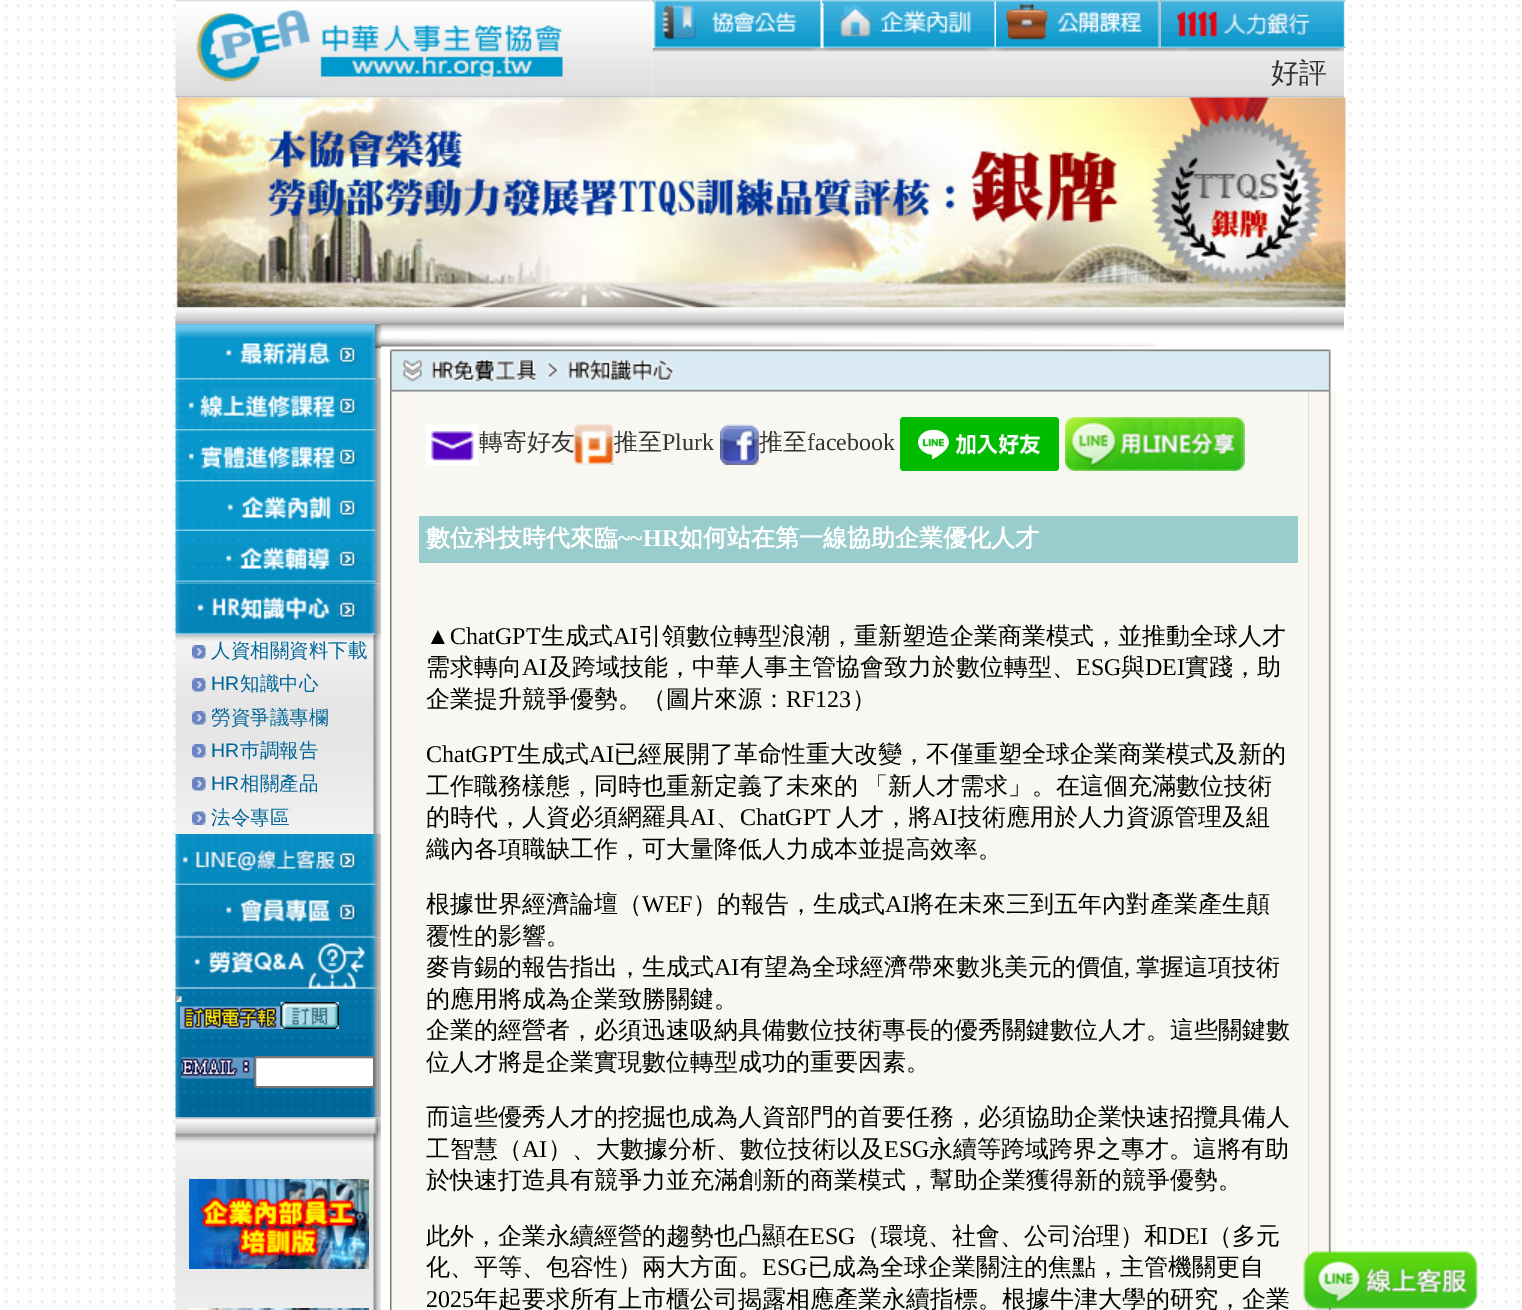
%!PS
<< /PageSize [1522 1310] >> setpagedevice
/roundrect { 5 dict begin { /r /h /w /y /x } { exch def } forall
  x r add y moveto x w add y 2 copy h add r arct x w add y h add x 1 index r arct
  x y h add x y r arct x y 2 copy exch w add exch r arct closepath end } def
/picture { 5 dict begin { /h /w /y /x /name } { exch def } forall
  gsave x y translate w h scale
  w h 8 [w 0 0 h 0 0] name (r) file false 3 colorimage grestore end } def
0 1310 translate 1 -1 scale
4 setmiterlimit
1 setgray
0 0 1522 1310 rectfill
(img1.rgb) 4 4 1516 1300 picture
(img7.rgb) 652 48 692 50 picture
(img2.rgb) 175 0 478 98 picture
(img3.rgb) 652 0 169 48 picture
(img4.rgb) 822 0 174 48 picture
(img5.rgb) 996 0 165 48 picture
(img6.rgb) 1161 0 185 48 picture
/WenQuanYiZenHei-Medium [28 0 0 -28 0 0] selectfont
0.2 setgray
1271 82 moveto (好評) show
(img8.rgb) 175 97 1171 211 picture
(img11.rgb) 175 322 206 56 picture
(img9.rgb) 175 307 1169 16 picture
1 setgray
388 328 952 976 rectfill
0.976 0.969 0.945 setrgbcolor
410 392 898 918 rectfill
(img45.rgb) 1308 391 29 919 picture
(img10.rgb) 1303 1251 175 59 picture
(img12.rgb) 175 322 206 56 picture
(img13.rgb) 175 378 206 51 picture
(img14.rgb) 175 429 206 51 picture
(img15.rgb) 175 480 206 51 picture
(img16.rgb) 175 531 206 53 picture
(img18.rgb) 175 634 206 200 picture
(img17.rgb) 175 583 206 52 picture
(img19.rgb) 192 645 14 14 picture
/WenQuanYiZenHei-Medium [19.5 0 0 -19.5 0 0] selectfont
0 0.4 0.6 setrgbcolor
211 657 moveto (人資相關資料下載) show
(img20.rgb) 192 678 14 14 picture
/LiberationSans-Regular [19.5 0 0 -19.5 0 0] selectfont
211 690 moveto (HR) show
/WenQuanYiZenHei-Medium [19.5 0 0 -19.5 0 0] selectfont
240 690 moveto (知識中心) show
(img21.rgb) 192 711 14 14 picture
211 724 moveto (勞資爭議專欄) show
(img22.rgb) 192 744 14 14 picture
/LiberationSans-Regular [19.5 0 0 -19.5 0 0] selectfont
211 757 moveto (HR) show
/WenQuanYiZenHei-Medium [19.5 0 0 -19.5 0 0] selectfont
240 757 moveto (巿調報告) show
(img23.rgb) 192 777 14 14 picture
/LiberationSans-Regular [19.5 0 0 -19.5 0 0] selectfont
211 790 moveto (HR) show
/WenQuanYiZenHei-Medium [19.5 0 0 -19.5 0 0] selectfont
240 790 moveto (相關產品) show
(img24.rgb) 192 811 14 14 picture
211 824 moveto (法令專區) show
(img25.rgb) 175 834 206 51 picture
(img26.rgb) 175 885 206 53 picture
(img28.rgb) 175 988 206 130 picture
(img27.rgb) 175 937 206 52 picture
0.624 setgray
newpath 175.5 996 moveto 181.5 996 lineto 178.5 999 lineto closepath fill
0.933 setgray
newpath 181.5 996 moveto 181.5 1002 lineto 178.5 999 lineto closepath fill
newpath 181.5 1002 moveto 175.5 1002 lineto 178.5 999 lineto closepath fill
0.624 setgray
newpath 175.5 1002 moveto 175.5 996 lineto 178.5 999 lineto closepath fill
(img29.rgb) 180 1006 101 23 picture
(img30.rgb) 280 1002 59 27 picture
(img31.rgb) 181 1057 73 22 picture
1 setgray
255 1057 119 30 2 roundrect gsave fill grestore
0.463 setgray
2 setlinewidth
stroke
(img32.rgb) 175 1117 206 20 picture
(img33.rgb) 175 1137 206 173 picture
(img34.rgb) 175 1137 1 173 picture
(img35.rgb) 189 1179 180 90 picture
(img36.rgb) 189 1308 180 2 picture
(img37.rgb) 381 322 963 28 picture
(img39.rgb) 390 391 20 919 picture
(img38.rgb) 390 349 941 43 picture
(img40.rgb) 426 424 53 41 picture
/WenQuanYiZenHei-Medium [24 0 0 -24 0 0] selectfont
0.2 setgray
479 450 moveto (轉寄好友) show
(img41.rgb) 574 424 40 41 picture
614 450 moveto (推至) show
/LiberationSerif-Regular [24 0 0 -24 0 0] selectfont
662 450 moveto (Plurk) show
(img42.rgb) 720 424 39 41 picture
/WenQuanYiZenHei-Medium [24 0 0 -24 0 0] selectfont
759 450 moveto (推至) show
/LiberationSerif-Regular [24 0 0 -24 0 0] selectfont
807 450 moveto (facebook) show
(img43.rgb) 900 417 159 54 picture
(img44.rgb) 1065 417 180 54 picture
0.6 0.8 0.8 setrgbcolor
419 516 879 47 rectfill
/WenQuanYiZenHei-Bold [24 0 0 -24 0 0] selectfont
1 setgray
426 546 moveto (數位科技時代來臨) show
/LiberationSerif-Bold [24 0 0 -24 0 0] selectfont
618 546 moveto (~~HR) show
/WenQuanYiZenHei-Bold [24 0 0 -24 0 0] selectfont
679 546 moveto (如何站在第一線協助企業優化人才) show
/LiberationSerif-Regular [24 0 0 -24 0 0] selectfont
0 setgray
426 644 moveto (▲ChatGPT) show
/WenQuanYiZenHei-Medium [24 0 0 -24 0 0] selectfont
541 644 moveto (生成式) show
/LiberationSerif-Regular [24 0 0 -24 0 0] selectfont
613 644 moveto (AI) show
/WenQuanYiZenHei-Medium [24 0 0 -24 0 0] selectfont
638 644 moveto (引領數位轉型浪潮，重新塑造企業商業模式，並推動全球人才) show
426 675 moveto (需求轉向) show
/LiberationSerif-Regular [24 0 0 -24 0 0] selectfont
522 675 moveto (AI) show
/WenQuanYiZenHei-Medium [24 0 0 -24 0 0] selectfont
548 675 moveto (及跨域技能，中華人事主管協會致力於數位轉型、) show
/LiberationSerif-Regular [24 0 0 -24 0 0] selectfont
1076 675 moveto (ESG) show
/WenQuanYiZenHei-Medium [24 0 0 -24 0 0] selectfont
1121 675 moveto (與) show
/LiberationSerif-Regular [24 0 0 -24 0 0] selectfont
1145 675 moveto (DEI) show
/WenQuanYiZenHei-Medium [24 0 0 -24 0 0] selectfont
1185 675 moveto (實踐，助) show
426 707 moveto (企業提升競爭優勢。（圖片來源：) show
/LiberationSerif-Regular [24 0 0 -24 0 0] selectfont
786 707 moveto (RF123) show
/WenQuanYiZenHei-Medium [24 0 0 -24 0 0] selectfont
852 707 moveto (）) show
/LiberationSerif-Regular [24 0 0 -24 0 0] selectfont
426 762 moveto (ChatGPT) show
/WenQuanYiZenHei-Medium [24 0 0 -24 0 0] selectfont
517 762 moveto (生成式) show
/LiberationSerif-Regular [24 0 0 -24 0 0] selectfont
589 762 moveto (AI) show
/WenQuanYiZenHei-Medium [24 0 0 -24 0 0] selectfont
614 762 moveto (已經展開了革命性重大改變，不僅重塑全球企業商業模式及新的) show
426 794 moveto -1 0 32 (工作職務樣態，同時也重新定義了未來的 「新人才需求」。在這個充滿數位技術) widthshow
426 825 moveto (的時代，人資必須網羅具) show
/LiberationSerif-Regular [24 0 0 -24 0 0] selectfont
690 825 moveto (AI) show
740 825 moveto (ChatGPT) show
/WenQuanYiZenHei-Medium [24 0 0 -24 0 0] selectfont
836 825 moveto (人才，將) show
/LiberationSerif-Regular [24 0 0 -24 0 0] selectfont
932 825 moveto (AI) show
/WenQuanYiZenHei-Medium [24 0 0 -24 0 0] selectfont
958 825 moveto (技術應用於人力資源管理及組) show
716 825 moveto (、) show
426 857 moveto (織內各項職缺工作，可大量降低人力成本並提高效率。) show
426 912 moveto (根據世界經濟論壇（) show
/LiberationSerif-Regular [24 0 0 -24 0 0] selectfont
642 912 moveto (WEF) show
/WenQuanYiZenHei-Medium [24 0 0 -24 0 0] selectfont
693 912 moveto (）的報告，生成式) show
/LiberationSerif-Regular [24 0 0 -24 0 0] selectfont
885 912 moveto (AI) show
/WenQuanYiZenHei-Medium [24 0 0 -24 0 0] selectfont
910 912 moveto (將在未來三到五年內對產業產生顛) show
426 944 moveto (覆性的影響。) show
426 975 moveto (麥肯錫的報告指出，生成式) show
/LiberationSerif-Regular [24 0 0 -24 0 0] selectfont
714 975 moveto (AI) show
/WenQuanYiZenHei-Medium [24 0 0 -24 0 0] selectfont
740 975 moveto (有望為全球經濟帶來數兆美元的價值) show
/LiberationSerif-Regular [24 0 0 -24 0 0] selectfont
1124 975 moveto (,) show
/WenQuanYiZenHei-Medium [24 0 0 -24 0 0] selectfont
1136 975 moveto (掌握這項技術) show
426 1007 moveto (的應用將成為企業致勝關鍵。) show
426 1038 moveto (企業的經營者，必須迅速吸納具備數位技術專長的優秀關鍵數位人才。這些關鍵數) show
426 1070 moveto (位人才將是企業實現數位轉型成功的重要因素。) show
426 1125 moveto (而這些優秀人才的挖掘也成為人資部門的首要任務，必須協助企業快速招攬具備人) show
426 1157 moveto (工智慧（) show
/LiberationSerif-Regular [24 0 0 -24 0 0] selectfont
522 1157 moveto (AI) show
/WenQuanYiZenHei-Medium [24 0 0 -24 0 0] selectfont
548 1157 moveto (）、大數據分析、數位技術以及) show
/LiberationSerif-Regular [24 0 0 -24 0 0] selectfont
884 1157 moveto (ESG) show
/WenQuanYiZenHei-Medium [24 0 0 -24 0 0] selectfont
929 1157 moveto (永續等跨域跨界之專才。這將有助) show
426 1188 moveto (於快速打造具有競爭力並充滿創新的商業模式，幫助企業獲得新的競爭優勢。) show
426 1244 moveto (此外，企業永續經營的趨勢也凸顯在) show
/LiberationSerif-Regular [24 0 0 -24 0 0] selectfont
810 1244 moveto (ESG) show
/WenQuanYiZenHei-Medium [24 0 0 -24 0 0] selectfont
856 1244 moveto (（環境、社會、公司治理）和) show
/LiberationSerif-Regular [24 0 0 -24 0 0] selectfont
1168 1244 moveto (DEI) show
/WenQuanYiZenHei-Medium [24 0 0 -24 0 0] selectfont
1208 1244 moveto (（多元) show
426 1275 moveto (化、平等、包容性）兩大方面。) show
/LiberationSerif-Regular [24 0 0 -24 0 0] selectfont
762 1275 moveto (ESG) show
/WenQuanYiZenHei-Medium [24 0 0 -24 0 0] selectfont
808 1275 moveto (已成為全球企業關注的焦點，主管機關更自) show
/LiberationSerif-Regular [24 0 0 -24 0 0] selectfont
426 1307 moveto (2025) show
/WenQuanYiZenHei-Medium [24 0 0 -24 0 0] selectfont
474 1307 moveto (年起要求所有上市櫃公司揭露相應產業永續指標。根據牛津大學的研究，企業) show
showpage
